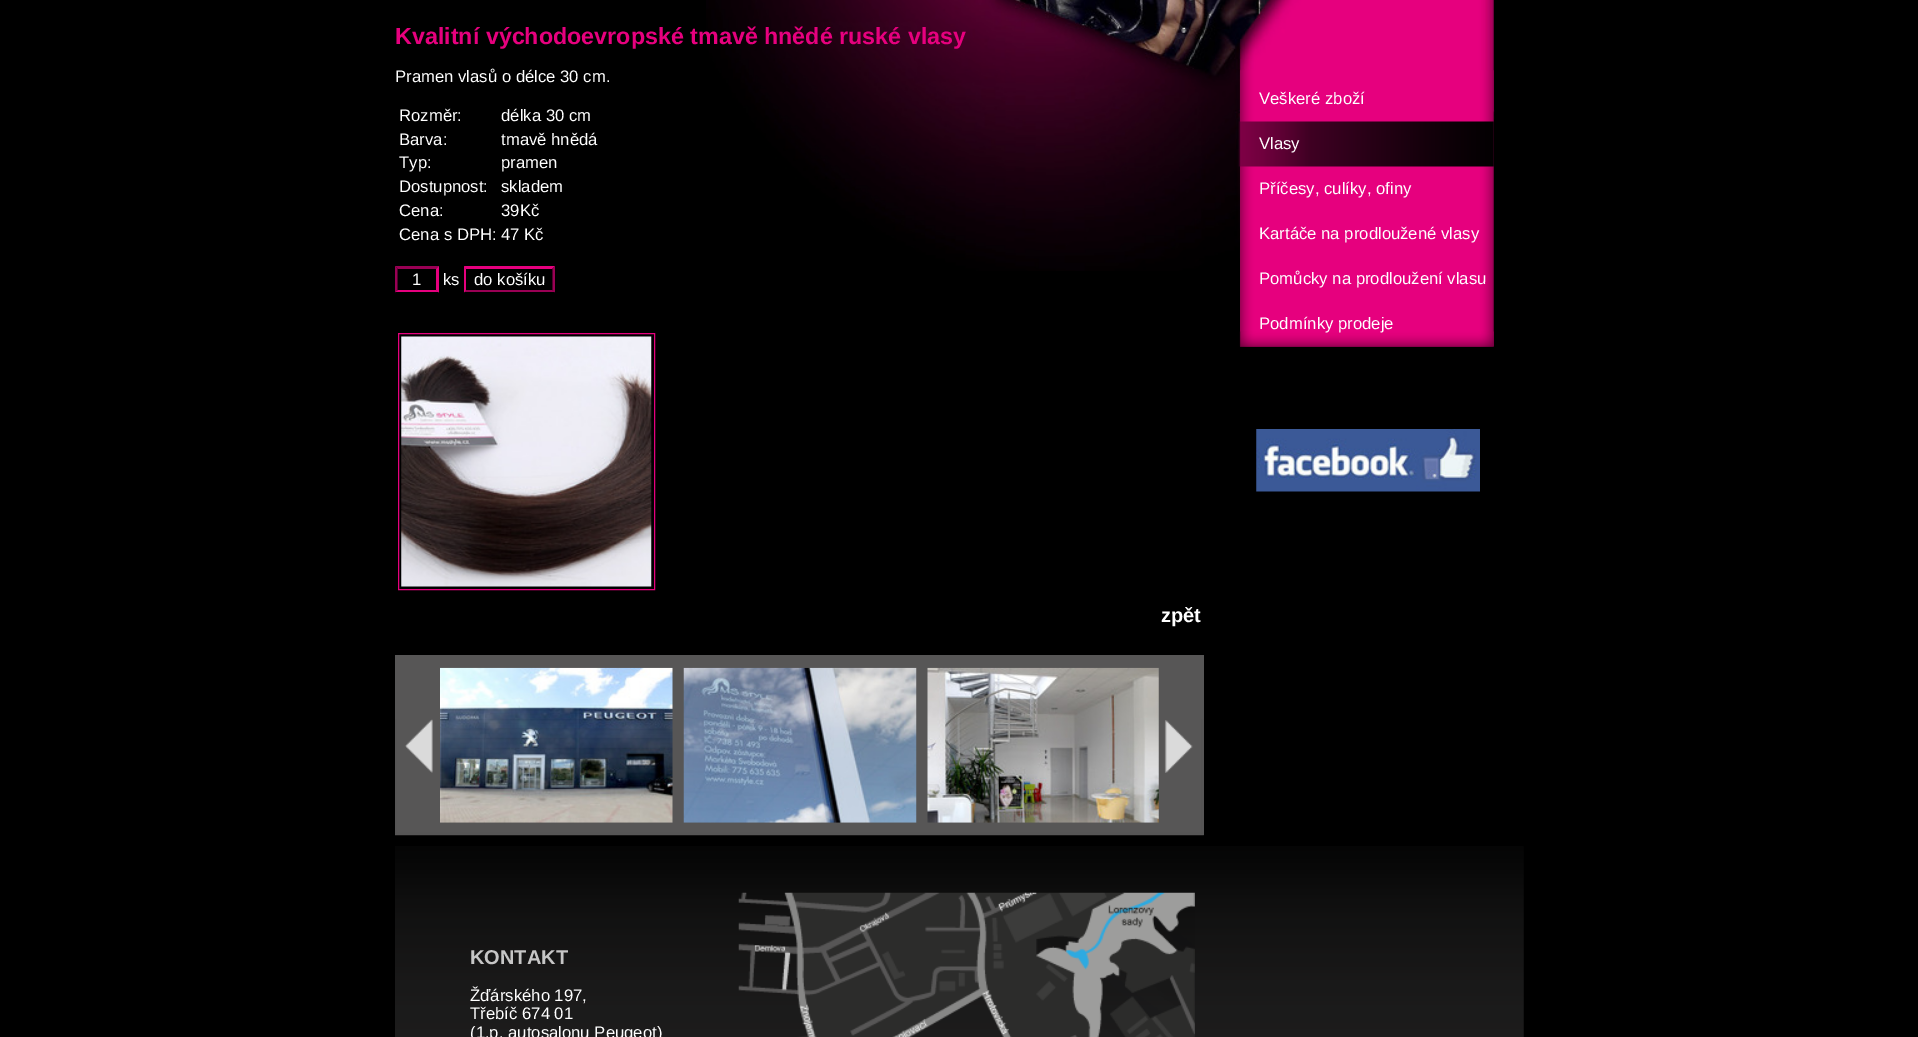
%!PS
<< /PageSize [1918 1037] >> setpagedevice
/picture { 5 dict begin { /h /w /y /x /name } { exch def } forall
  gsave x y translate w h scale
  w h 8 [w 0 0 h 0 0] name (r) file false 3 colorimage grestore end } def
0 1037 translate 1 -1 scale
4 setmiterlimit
0 setgray
0 0 1918 1037 rectfill
(img1.rgb) 706 0 789 271 picture
(img2.rgb) 395 846 1129 191 picture
/LiberationSans-Bold [23.3 0 0 -23.3 0 0] selectfont
0.902 0 0.494 setrgbcolor
395 44 moveto (Kvalitní východoevropské tmavě hnědé ruské vlasy) show
/LiberationSans-Regular [16.7 0 0 -16.7 0 0] selectfont
1 setgray
395 82 moveto (Pramen vlasů o délce 30 cm.) show
399 121 moveto (Rozměr:) show
501 121 moveto (délka 30 cm) show
399 145 moveto (Barva:) show
501 145 moveto (tmavě hnědá) show
399 168 moveto (Typ:) show
501 168 moveto (pramen) show
399 192 moveto (Dostupnost:) show
501 192 moveto (skladem) show
399 216 moveto (Cena:) show
501 216 moveto (39Kč) show
399 240 moveto (Cena s DPH:) show
501 240 moveto (47 Kč) show
0.6 0 0.329 setrgbcolor
newpath 395 266 moveto 439 266 lineto 436 269 lineto 398 269 lineto closepath fill
0.902 0 0.494 setrgbcolor
newpath 439 266 moveto 439 292.5 lineto 436 290 lineto 436 269 lineto closepath fill
newpath 439 292 moveto 395 292 lineto 398 290 lineto 436 290 lineto closepath fill
0.6 0 0.329 setrgbcolor
newpath 395 292.5 moveto 395 266 lineto 397.5 269 lineto 397.5 290 lineto closepath fill
1 setgray
412 285 moveto (1) show
443 285 moveto (ks) show
0.902 0 0.494 setrgbcolor
newpath 464 266 moveto 555 266 lineto 552 269 lineto 466 269 lineto closepath fill
0.6 0 0.329 setrgbcolor
newpath 555 266 moveto 555 292.5 lineto 552.5 290 lineto 552.5 269 lineto closepath fill
newpath 555 292 moveto 464 292 lineto 466 290 lineto 552 290 lineto closepath fill
0.902 0 0.494 setrgbcolor
newpath 464 292.5 moveto 464 266 lineto 466 269 lineto 466 290 lineto closepath fill
1 setgray
474 285 moveto (do košíku) show
0.902 0 0.494 setrgbcolor
398.5 333.5 256 256 rectstroke
(img3.rgb) 401 336 251 251 picture
/LiberationSans-Bold [20 0 0 -20 0 0] selectfont
1 setgray
1161 622 moveto (zpět) show
0.341 0.337 0.337 setrgbcolor
395 655 809 180 rectfill
(img4.rgb) 395 719 809 117 picture
(img5.rgb) 440 667 233 156 picture
(img6.rgb) 683 667 234 156 picture
(img7.rgb) 927 667 232 156 picture
(img8.rgb) 738 892 457 145 picture
0.776 setgray
470 964 moveto (KONTAKT) show
/LiberationSans-Regular [16.7 0 0 -16.7 0 0] selectfont
1 setgray
470 1001 moveto (Žďárského 197,) show
470 1019 moveto (Třebíč 674 01) show
470 1038 moveto (\(1.p. autosalonu Peugeot\)) show
(img9.rgb) 1240 70 254 277 picture
(img10.rgb) 1239 331 255 16 picture
1259 104 moveto (Veškeré zboží) show
(img11.rgb) 1238 121 256 46 picture
1259 149 moveto (Vlasy) show
1259 194 moveto (Příčesy, culíky, ofiny) show
1259 239 moveto (Kartáče na prodloužené vlasy) show
1259 284 moveto (Pomůcky na prodloužení vlasu) show
1259 329 moveto (Podmínky prodeje) show
(img12.rgb) 1256 429 224 63 picture
showpage
